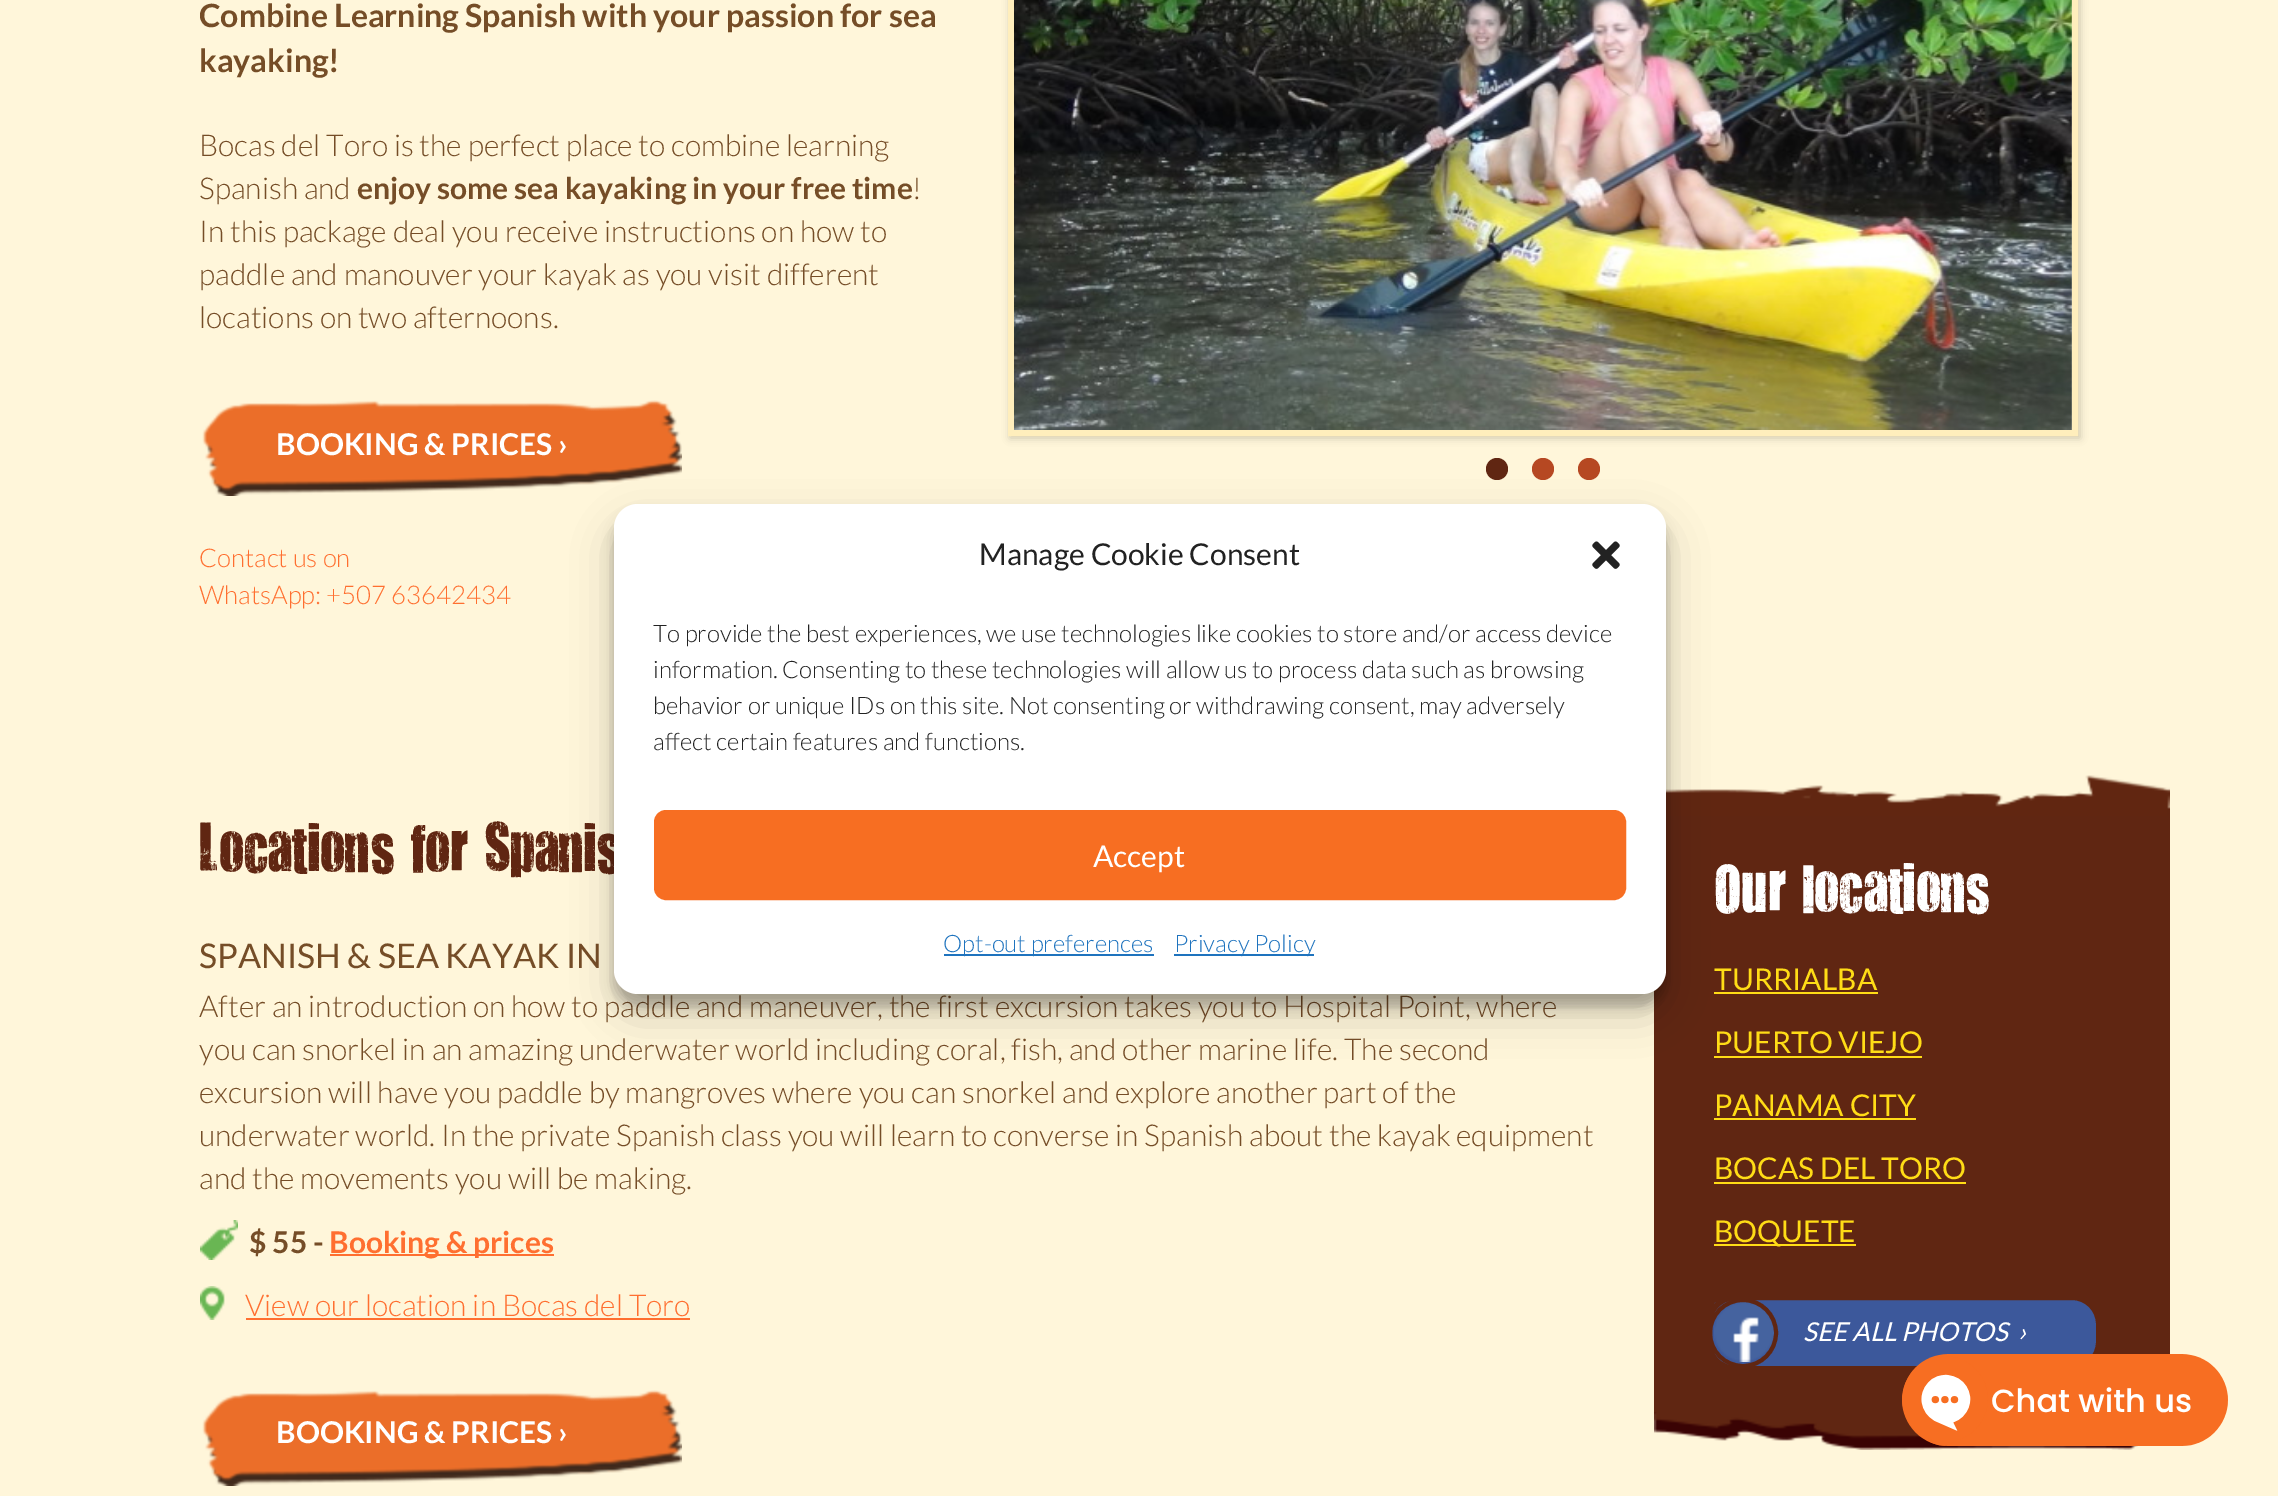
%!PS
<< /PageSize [2278 1496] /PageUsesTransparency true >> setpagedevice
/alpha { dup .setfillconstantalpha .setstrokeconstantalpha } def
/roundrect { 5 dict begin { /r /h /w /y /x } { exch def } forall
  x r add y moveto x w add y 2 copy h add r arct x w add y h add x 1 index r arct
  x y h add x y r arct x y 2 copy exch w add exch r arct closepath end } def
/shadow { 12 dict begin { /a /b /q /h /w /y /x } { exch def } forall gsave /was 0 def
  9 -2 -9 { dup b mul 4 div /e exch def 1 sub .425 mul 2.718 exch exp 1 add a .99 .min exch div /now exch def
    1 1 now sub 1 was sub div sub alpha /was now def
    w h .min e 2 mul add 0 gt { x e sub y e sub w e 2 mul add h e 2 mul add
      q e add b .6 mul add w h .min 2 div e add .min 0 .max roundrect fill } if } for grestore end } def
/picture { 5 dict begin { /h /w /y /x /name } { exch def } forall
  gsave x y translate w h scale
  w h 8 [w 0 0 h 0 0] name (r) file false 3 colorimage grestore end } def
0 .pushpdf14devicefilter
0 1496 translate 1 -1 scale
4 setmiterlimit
1 0.965 0.855 setrgbcolor
0 0 2278 1496 rectfill
/Lato-Bold [32 0 0 -32 0 0] selectfont
0.459 0.302 0.153 setrgbcolor
199 27 moveto (Combine Learning Spanish with your passion for sea) show
199 72 moveto (kayaking!) show
/Lato-Light [30 0 0 -30 0 0] selectfont
199 156 moveto (Bocas del Toro is the perfect place to combine learning) show
199 199 moveto (Spanish and) show
/Lato-Bold [30 0 0 -30 0 0] selectfont
357 199 moveto (enjoy some sea kayaking in your free time) show
/Lato-Light [30 0 0 -30 0 0] selectfont
912 199 moveto (!) show
199 242 moveto (In this package deal you receive instructions on how to) show
199 285 moveto (paddle and manouver your kayak as you visit different) show
199 328 moveto (locations on two afternoons.) show
(img1.rgb) 202 400 480 96 picture
/Lato-Bold [30 0 0 -30 0 0] selectfont
1 setgray
276 455 moveto (BOOKING & PRICES ›) show
/Lato-Light [25.75 0 0 -25.75 0 0] selectfont
1 0.435 0.188 setrgbcolor
199 567 moveto (Contact us on) show
199 604 moveto (WhatsApp: +507 63642434) show
0 setgray
1010 -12 1070 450 0 4 0.2 shadow
1 0.933 0.737 setrgbcolor
6 setlinewidth
1011 -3 1064 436 rectstroke
(img2.rgb) 1014 0 1058 430 picture
0.376 0.149 0.071 setrgbcolor
newpath 1497 469 11 0 360 arc closepath fill
0.714 0.282 0.133 setrgbcolor
newpath 1543 469 11 0 360 arc closepath fill
newpath 1589 469 11 0 360 arc closepath fill
/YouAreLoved-Regular [56 0 0 -56 0 0] selectfont
0.376 0.149 0.071 setrgbcolor
199 870 moveto (Locations for Spanis) show
/Lato-Regular [34 0 0 -34 0 0] selectfont
0.459 0.302 0.153 setrgbcolor
199 968 moveto (SPANISH & SEA KAYAK IN) show
/Lato-Light [30 0 0 -30 0 0] selectfont
199 1017 moveto (After an introduction on how to paddle and maneuver, the first excursion takes you to Hospital Point, where) show
199 1060 moveto (you can snorkel in an amazing underwater world including coral, fish, and other marine life. The second) show
199 1103 moveto (excursion will have you paddle by mangroves where you can snorkel and explore another part of the) show
199 1146 moveto (underwater world. In the private Spanish class you will learn to converse in Spanish about the kayak equipment) show
199 1189 moveto (and the movements you will be making.) show
(img3.rgb) 200 1220 38 40 picture
/Lato-Bold [30 0 0 -30 0 0] selectfont
249 1253 moveto ($ 55 -) show
1 0.435 0.188 setrgbcolor
330 1254 224 2 rectfill
329 1253 moveto (Booking & prices) show
(img4.rgb) 200 1286 25 34 picture
/Lato-Light [30 0 0 -30 0 0] selectfont
245 1316 moveto (View our location in Bocas del Toro) show
246 1318 444 2 rectfill
(img1.rgb) 202 1390 480 96 picture
/Lato-Bold [30 0 0 -30 0 0] selectfont
1 setgray
276 1443 moveto (BOOKING & PRICES ›) show
(img5.rgb) 1666 775 504 41 picture
0.376 0.149 0.071 setrgbcolor
1654 816 516 596 rectfill
/YouAreLoved-Regular [56 0 0 -56 0 0] selectfont
1 setgray
1714 910 moveto (Our locations) show
/Lato-Regular [30 0 0 -30 0 0] selectfont
1 0.863 0.086 setrgbcolor
1714 990 moveto (TURRIALBA) show
1714 992 164 2 rectfill
1714 1053 moveto (PUERTO VIEJO) show
1714 1056 208 2 rectfill
1714 1116 moveto (PANAMA CITY) show
1714 1118 202 2 rectfill
1714 1179 moveto (BOCAS DEL TORO) show
1714 1182 252 2 rectfill
1714 1244 142 2 rectfill
1714 1242 moveto (BOQUETE) show
0.235 0.345 0.608 setrgbcolor
1709 1297 390 72 27 roundrect gsave fill grestore
0.376 0.149 0.071 setrgbcolor
stroke
(img6.rgb) 1714 1302 60 60 picture
4 setlinewidth
newpath 1743 1333 33 0 360 arc closepath stroke
/Lato-Italic [26 0 0 -26 0 0] selectfont
1 setgray
1803 1341 moveto (SEE ALL PHOTOS  ›) show
(img7.rgb) 1654 1412 484 38 picture
0 setgray
614 516 1052 490 24 6 0.23 shadow
614 524 1052 490 24 20 0.19 shadow
1 setgray
614 504 1052 490 24 roundrect fill
/Lato-Regular [30 0 0 -30 0 0] selectfont
0.133 setgray
979 565 moveto (Manage Cookie Consent) show
(img8.rgb) 1592 541 28 28 picture
/Lato-Light [24 0 0 -24 0 0] selectfont
653 642 moveto (To provide the best experiences, we use technologies like cookies to store and/or access device) show
653 678 moveto (information. Consenting to these technologies will allow us to process data such as browsing) show
653 714 moveto (behavior or unique IDs on this site. Not consenting or withdrawing consent, may adversely) show
653 750 moveto (affect certain features and functions.) show
0.969 0.431 0.133 setrgbcolor
655 811 970 88 11 roundrect gsave fill grestore
2 setlinewidth
stroke
/Lato-Regular [30 0 0 -30 0 0] selectfont
1 setgray
1093 867 moveto (Accept) show
0.118 0.451 0.745 setrgbcolor
944 954 210 2 rectfill
/Lato-Light [24 0 0 -24 0 0] selectfont
943 952 moveto (Opt-out preferences) show
1174 954 140 2 rectfill
1174 952 moveto (Privacy Policy) show
(img9.rgb) 1902 1354 326 92 picture
.poppdf14devicefilter showpage
